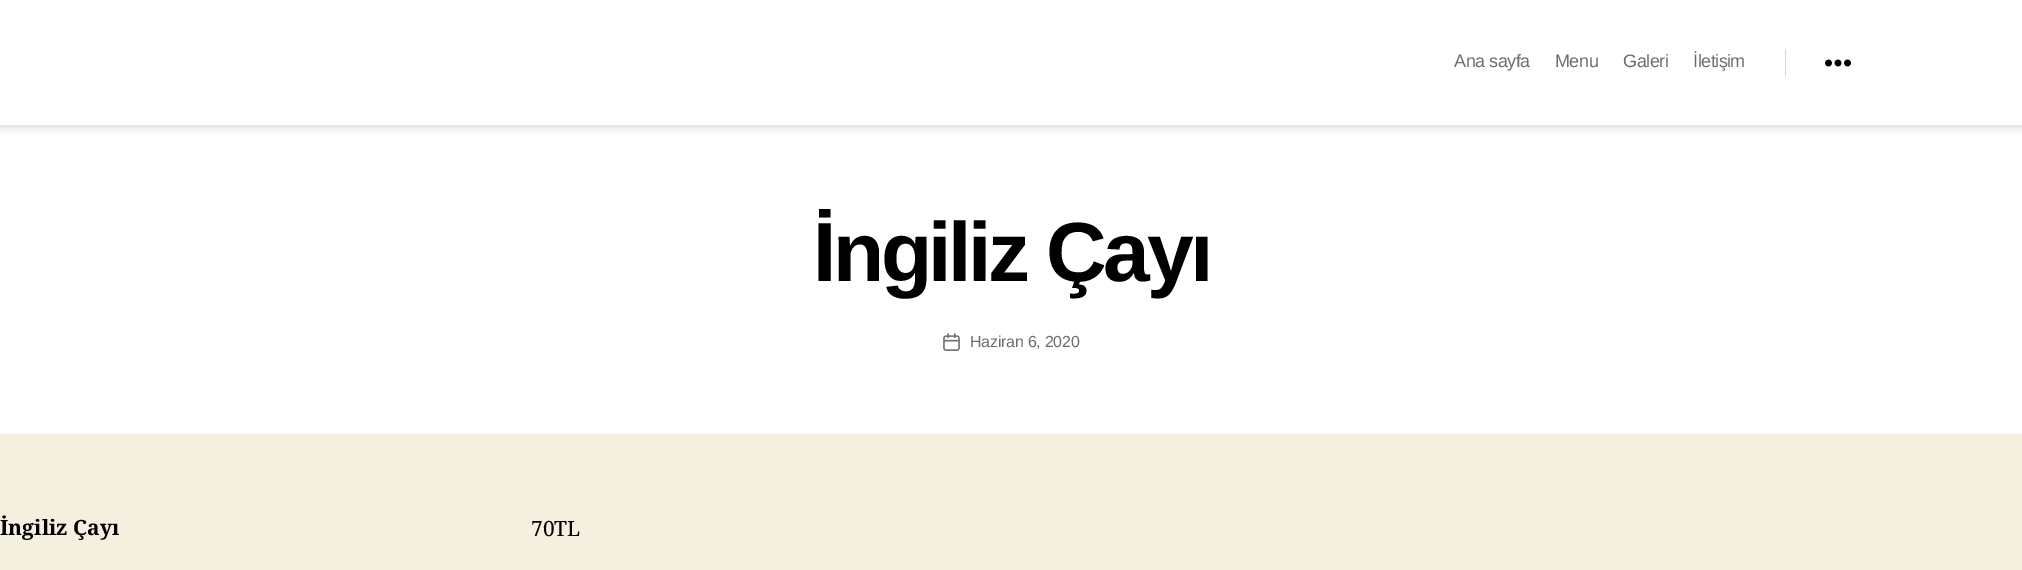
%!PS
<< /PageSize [2022 570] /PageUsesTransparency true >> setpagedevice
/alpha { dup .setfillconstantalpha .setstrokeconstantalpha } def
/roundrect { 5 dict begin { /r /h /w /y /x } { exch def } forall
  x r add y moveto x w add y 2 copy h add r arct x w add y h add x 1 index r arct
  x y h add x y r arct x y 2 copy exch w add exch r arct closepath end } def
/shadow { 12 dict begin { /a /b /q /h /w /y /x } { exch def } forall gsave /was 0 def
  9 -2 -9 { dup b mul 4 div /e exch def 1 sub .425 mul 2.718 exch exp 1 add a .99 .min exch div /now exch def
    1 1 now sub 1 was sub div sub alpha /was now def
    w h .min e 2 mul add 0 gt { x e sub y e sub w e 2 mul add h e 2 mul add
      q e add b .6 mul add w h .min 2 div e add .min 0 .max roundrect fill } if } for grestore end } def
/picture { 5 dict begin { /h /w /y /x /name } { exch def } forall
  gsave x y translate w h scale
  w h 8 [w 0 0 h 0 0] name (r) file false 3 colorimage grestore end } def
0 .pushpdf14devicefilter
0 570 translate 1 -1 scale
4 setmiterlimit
0.961 0.937 0.878 setrgbcolor
0 0 2022 570 rectfill
1 setgray
0 125 2022 309 rectfill
0 setgray
0 2 2022 125 0 5 0.16 shadow
1 setgray
0 0 2022 125 rectfill
/LiberationSans-Regular [18 0 0 -18 0 0] selectfont
0.427 setgray
1454 67 moveto -0.5 0 (Ana sayfa) ashow
1555 67 moveto -0.5 0 (Menu) ashow
1623 67 moveto -0.5 0 (Galeri) ashow
1693 67 moveto -0.5 0 (İletişim) ashow
0.863 0.843 0.792 setrgbcolor
1785 49 1 27 rectfill
(img1.rgb) 1825 59 26 8 picture
/LiberationSans-Bold [84 0 0 -84 0 0] selectfont
0 setgray
813 281 moveto -3.5 0 (İngiliz Çayı) ashow
(img2.rgb) 943 333 17 18 picture
/LiberationSans-Regular [16 0 0 -16 0 0] selectfont
0.427 setgray
970 347 moveto -0.25 0 (Haziran 6, 2020) ashow
/NotoSerif-Bold [21 0 0 -21 0 0] selectfont
0 setgray
0 535 moveto (İngiliz Çayı) show
/NotoSerif-Regular [21 0 0 -21 0 0] selectfont
531 536 moveto (70TL) show
.poppdf14devicefilter showpage
